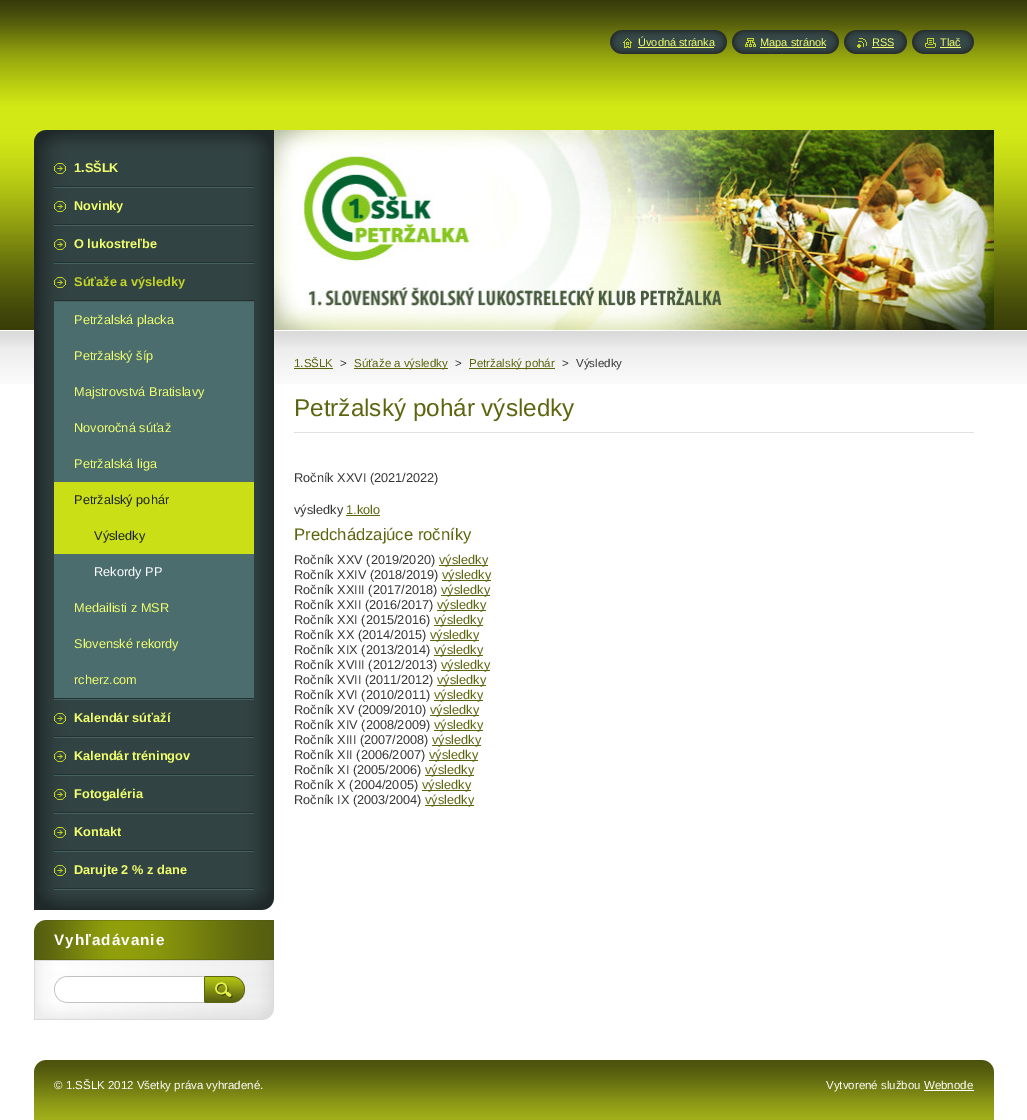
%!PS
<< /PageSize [1027 1120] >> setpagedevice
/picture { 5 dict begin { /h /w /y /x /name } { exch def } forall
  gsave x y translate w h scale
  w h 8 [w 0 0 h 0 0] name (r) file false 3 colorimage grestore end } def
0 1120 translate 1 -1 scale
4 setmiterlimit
1 setgray
0 0 1027 1120 rectfill
(img1.rgb) 0 0 1027 384 picture
(img2.rgb) 610 30 13 24 picture
(img3.rgb) 623 30 104 24 picture
(img4.rgb) 623 38 9 10 picture
/LiberationSans-Regular [11 0 0 -11 0 0] selectfont
0.941 1 0.427 setrgbcolor
638 46 moveto (Úvodná stránka) show
638 47 76 1 rectfill
(img2.rgb) 732 30 13 24 picture
(img5.rgb) 745 30 94 24 picture
(img6.rgb) 745 38 11 9 picture
760 47 66 1 rectfill
760 46 moveto (Mapa stránok) show
(img2.rgb) 844 30 13 24 picture
(img7.rgb) 857 30 50 24 picture
(img8.rgb) 857 38 10 10 picture
872 46 moveto (RSS) show
872 47 22 1 rectfill
(img2.rgb) 912 30 13 24 picture
(img9.rgb) 925 30 49 24 picture
(img10.rgb) 925 38 11 10 picture
940 46 moveto (Tlač) show
940 47 21 1 rectfill
(img11.rgb) 34 130 240 20 picture
(img12.rgb) 34 890 240 20 picture
(img13.rgb) 34 150 240 740 picture
(img14.rgb) 54 186 200 2 picture
(img15.rgb) 54 163 12 11 picture
/LiberationSans-Bold [12.75 0 0 -12.75 0 0] selectfont
74 172 moveto (1.SŠLK) show
(img14.rgb) 54 224 200 2 picture
(img15.rgb) 54 201 12 11 picture
74 210 moveto (Novinky) show
(img14.rgb) 54 262 200 2 picture
(img15.rgb) 54 239 12 11 picture
74 248 moveto (O lukostreľbe) show
(img14.rgb) 54 698 200 2 picture
(img15.rgb) 54 277 12 11 picture
0.765 0.835 0.149 setrgbcolor
74 286 moveto (Súťaže a výsledky) show
(img14.rgb) 54 300 200 2 picture
0.294 0.427 0.427 setrgbcolor
54 302 200 180 rectfill
/LiberationSans-Regular [12.75 0 0 -12.75 0 0] selectfont
0.941 1 0.427 setrgbcolor
74 324 moveto (Petržalská placka) show
74 360 moveto (Petržalský šíp) show
74 396 moveto (Majstrovstvá Bratislavy) show
74 432 moveto (Novoročná súťaž) show
74 468 moveto (Petržalská liga) show
0.792 0.875 0.086 setrgbcolor
54 482 200 72 rectfill
0.11 0.133 0.133 setrgbcolor
74 504 moveto (Petržalský pohár) show
94 540 moveto (Výsledky) show
0.294 0.427 0.427 setrgbcolor
54 554 200 144 rectfill
1 setgray
94 576 moveto (Rekordy PP) show
0.941 1 0.427 setrgbcolor
74 612 moveto (Medailisti z MSR) show
74 648 moveto (Slovenské rekordy) show
74 684 moveto (rcherz.com) show
(img14.rgb) 54 736 200 2 picture
(img15.rgb) 54 713 12 11 picture
/LiberationSans-Bold [12.75 0 0 -12.75 0 0] selectfont
74 722 moveto (Kalendár súťaží) show
(img14.rgb) 54 774 200 2 picture
(img15.rgb) 54 751 12 11 picture
74 760 moveto (Kalendár tréningov) show
(img14.rgb) 54 812 200 2 picture
(img15.rgb) 54 789 12 11 picture
74 798 moveto (Fotogaléria) show
(img14.rgb) 54 850 200 2 picture
(img15.rgb) 54 827 12 11 picture
74 836 moveto (Kontakt) show
(img14.rgb) 54 888 200 2 picture
(img15.rgb) 54 865 12 11 picture
74 874 moveto (Darujte 2 % z dane) show
(img16.rgb) 34 1003 240 17 picture
(img17.rgb) 34 920 240 40 picture
/LiberationSans-Bold [15.25 0 0 -15.25 0 0] selectfont
1 setgray
54 945 moveto 1 0 (Vyhľadávanie) ashow
(img18.rgb) 34 961 240 42 picture
0.859 setgray
34 960 240 1 rectfill
(img19.rgb) 54 976 150 27 picture
(img20.rgb) 204 976 41 27 picture
(img21.rgb) 274 130 720 200 picture
/LiberationSans-Regular [11.5 0 0 -11.5 0 0] selectfont
0.365 0.396 0.055 setrgbcolor
294 367 moveto (1.SŠLK) show
294 368 39 1 rectfill
0.212 setgray
340 367 moveto (>) show
0.365 0.396 0.055 setrgbcolor
354 368 94 1 rectfill
354 367 moveto (Súťaže a výsledky) show
0.212 setgray
455 367 moveto (>) show
0.365 0.396 0.055 setrgbcolor
469 368 86 1 rectfill
469 367 moveto (Petržalský pohár) show
0.212 setgray
562 367 moveto (>) show
576 367 moveto (Výsledky) show
0.882 setgray
294 432 680 1 rectfill
/LiberationSans-Regular [24.25 0 0 -24.25 0 0] selectfont
0.365 0.396 0.055 setrgbcolor
294 416 moveto (Petržalský pohár výsledky) show
/LiberationSans-Regular [12.75 0 0 -12.75 0 0] selectfont
0.212 setgray
294 482 moveto (Ročník XXVI \(2021/2022\)) show
294 514 moveto (výsledky) show
0.365 0.396 0.055 setrgbcolor
346 514 moveto (1.kolo) show
346 515 34 1 rectfill
/LiberationSans-Regular [16.6 0 0 -16.6 0 0] selectfont
294 540 moveto (Predchádzajúce ročníky) show
/LiberationSans-Regular [12.75 0 0 -12.75 0 0] selectfont
0.212 setgray
294 564 moveto (Ročník XXV \(2019/2020\)) show
0.365 0.396 0.055 setrgbcolor
439 565 49 1 rectfill
439 564 moveto (výsledky) show
0.212 setgray
294 579 moveto (Ročník XXIV \(2018/2019\)) show
0.365 0.396 0.055 setrgbcolor
442 580 49 1 rectfill
442 579 moveto (výsledky) show
0.212 setgray
294 594 moveto (Ročník XXIII \(2017/2018\)) show
0.365 0.396 0.055 setrgbcolor
441 595 49 1 rectfill
441 594 moveto (výsledky) show
0.212 setgray
294 609 moveto (Ročník XXII \(2016/2017\)) show
0.365 0.396 0.055 setrgbcolor
437 610 49 1 rectfill
437 609 moveto (výsledky) show
0.212 setgray
294 624 moveto (Ročník XXI \(2015/2016\)) show
0.365 0.396 0.055 setrgbcolor
434 625 49 1 rectfill
434 624 moveto (výsledky) show
0.212 setgray
294 639 moveto (Ročník XX \(2014/2015\)) show
0.365 0.396 0.055 setrgbcolor
430 640 49 1 rectfill
430 639 moveto (výsledky) show
0.212 setgray
294 654 moveto (Ročník XIX \(2013/2014\)) show
0.365 0.396 0.055 setrgbcolor
434 655 49 1 rectfill
434 654 moveto (výsledky) show
0.212 setgray
294 669 moveto (Ročník XVIII \(2012/2013\)) show
0.365 0.396 0.055 setrgbcolor
441 670 49 1 rectfill
441 669 moveto (výsledky) show
0.212 setgray
294 684 moveto (Ročník XVII \(2011/2012\)) show
0.365 0.396 0.055 setrgbcolor
437 685 49 1 rectfill
437 684 moveto (výsledky) show
0.212 setgray
294 699 moveto (Ročník XVI \(2010/2011\)) show
0.365 0.396 0.055 setrgbcolor
434 700 49 1 rectfill
434 699 moveto (výsledky) show
0.212 setgray
294 714 moveto (Ročník XV \(2009/2010\)) show
0.365 0.396 0.055 setrgbcolor
430 715 49 1 rectfill
430 714 moveto (výsledky) show
0.212 setgray
294 729 moveto (Ročník XIV \(2008/2009\)) show
0.365 0.396 0.055 setrgbcolor
434 730 49 1 rectfill
434 729 moveto (výsledky) show
0.212 setgray
294 744 moveto (Ročník XIII \(2007/2008\)) show
0.365 0.396 0.055 setrgbcolor
432 745 49 1 rectfill
432 744 moveto (výsledky) show
0.212 setgray
294 759 moveto (Ročník XII \(2006/2007\)) show
0.365 0.396 0.055 setrgbcolor
429 760 49 1 rectfill
429 759 moveto (výsledky) show
0.212 setgray
294 774 moveto (Ročník XI \(2005/2006\)) show
0.365 0.396 0.055 setrgbcolor
425 775 49 1 rectfill
425 774 moveto (výsledky) show
0.212 setgray
294 789 moveto (Ročník X \(2004/2005\)) show
0.365 0.396 0.055 setrgbcolor
422 790 49 1 rectfill
422 789 moveto (výsledky) show
0.212 setgray
294 804 moveto (Ročník IX \(2003/2004\)) show
0.365 0.396 0.055 setrgbcolor
425 805 49 1 rectfill
425 804 moveto (výsledky) show
(img22.rgb) 34 1060 960 60 picture
/LiberationSans-Regular [11.5 0 0 -11.5 0 0] selectfont
1 setgray
54 1089 moveto (© 1.SŠLK 2012 Všetky práva vyhradené.) show
826 1089 moveto (Vytvorené službou Webnode) show
924 1090 50 1 rectfill
showpage
